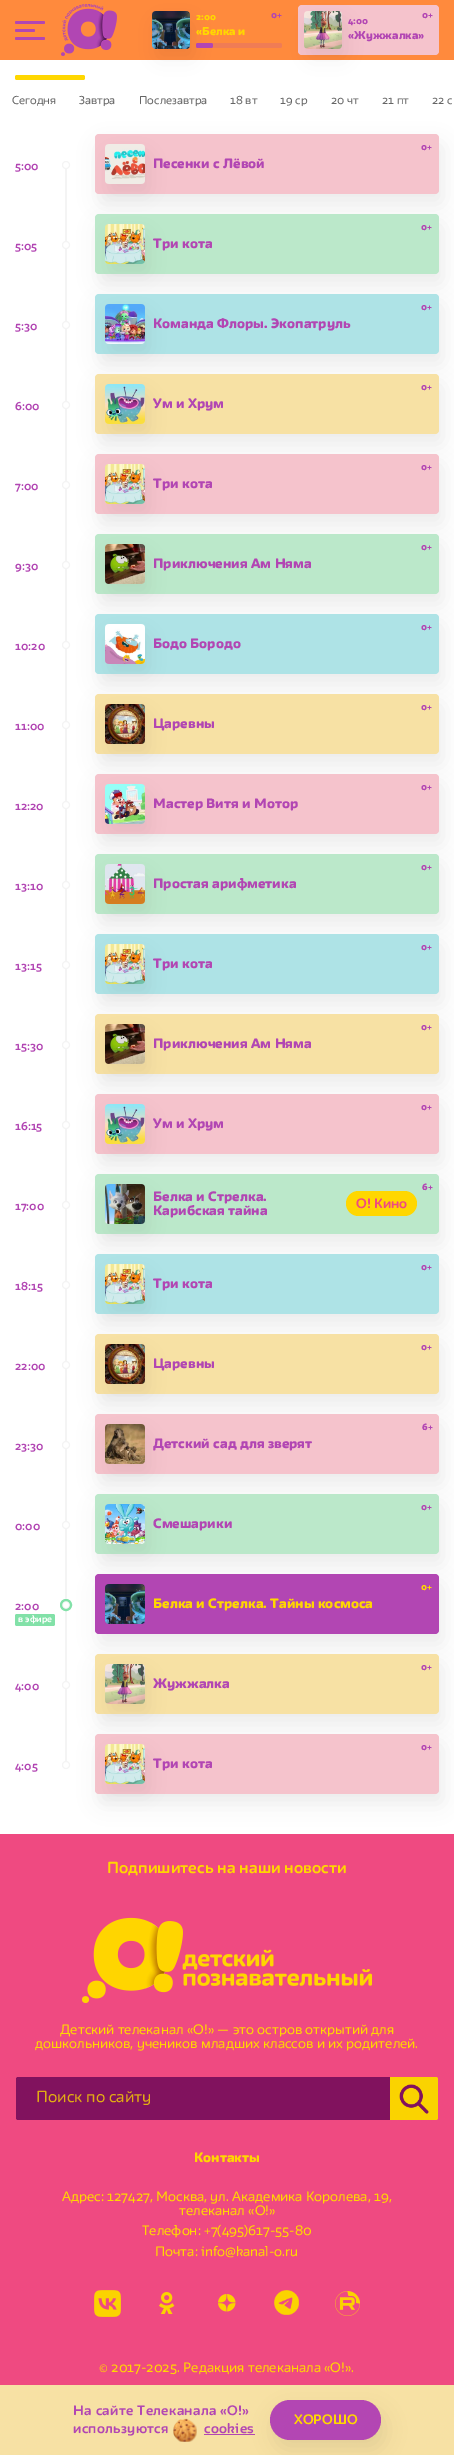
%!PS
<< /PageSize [454 2455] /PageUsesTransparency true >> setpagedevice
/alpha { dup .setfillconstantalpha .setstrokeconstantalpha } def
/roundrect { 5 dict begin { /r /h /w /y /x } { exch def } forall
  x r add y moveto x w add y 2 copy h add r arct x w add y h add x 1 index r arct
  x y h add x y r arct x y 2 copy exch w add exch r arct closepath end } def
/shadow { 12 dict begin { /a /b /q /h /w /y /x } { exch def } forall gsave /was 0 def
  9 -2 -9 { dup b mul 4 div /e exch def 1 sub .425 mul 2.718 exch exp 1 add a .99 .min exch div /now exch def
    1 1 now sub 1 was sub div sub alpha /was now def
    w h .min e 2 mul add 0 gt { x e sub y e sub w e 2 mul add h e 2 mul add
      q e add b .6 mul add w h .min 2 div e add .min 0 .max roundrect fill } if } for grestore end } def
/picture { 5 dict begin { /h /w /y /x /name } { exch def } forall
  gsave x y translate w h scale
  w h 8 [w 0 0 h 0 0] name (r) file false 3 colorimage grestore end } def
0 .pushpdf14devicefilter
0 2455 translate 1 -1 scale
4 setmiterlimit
1 setgray
0 0 454 2455 rectfill
1 0.541 0.239 setrgbcolor
0 0 454 60 rectfill
0.698 0.275 0.702 setrgbcolor
15 21 30 3 1.5 roundrect fill
15 29 20 3 1.5 roundrect fill
15 37 30 3 1.5 roundrect fill
(img1.rgb) 61 4 56 52 picture
0 setgray
156 21 38 38 4 10 0.06 shadow
(img2.rgb) 152 11 38 38 picture
/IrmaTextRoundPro-Black [8 0 0 -8 0 0] selectfont
0.698 0.275 0.702 setrgbcolor
271 18 moveto (0+) show
1 0.843 0 setrgbcolor
196 20 moveto (2:00) show
/IrmaTextRoundPro-Black [10 0 0 -10 0 0] selectfont
196 35 moveto («Белка и) show
0.2 alpha
0.698 0.275 0.702 setrgbcolor
196 43 86 5 2 roundrect fill
1 alpha
196 43 17 5 2 roundrect fill
0.961 0.765 0.8 setrgbcolor
298 5 141 50 4 roundrect fill
0 setgray
308 21 38 38 4 10 0.06 shadow
(img3.rgb) 304 11 38 38 picture
/IrmaTextRoundPro-Black [8 0 0 -8 0 0] selectfont
0.698 0.275 0.702 setrgbcolor
422 18 moveto (0+) show
348 24 moveto (4:00) show
/IrmaTextRoundPro-Black [10 0 0 -10 0 0] selectfont
348 39 moveto («Жужжалка») show
1 0.843 0 setrgbcolor
15 75 70 5 2 roundrect fill
/IrmaTextRoundPro-Regular [10 0 0 -10 0 0] selectfont
0.396 setgray
12 104 moveto (Сегодня) show
79 104 moveto (Завтра) show
139 104 moveto (Послезавтра) show
230 104 moveto (18 вт) show
280 104 moveto (19 ср) show
331 104 moveto (20 чт) show
382 104 moveto (21 пт) show
432 104 moveto (22 с) show
/IrmaTextRoundPro-Bold [10 0 0 -10 0 0] selectfont
0.698 0.275 0.702 setrgbcolor
15 170 moveto (5:00) show
0.957 setgray
65 161 2 1600 rectfill
1 setgray
newpath 66 165 3.5 0 360 arc closepath gsave fill grestore
0.957 setgray
stroke
0 setgray
99 144 344 60 4 10 0.07 shadow
0.961 0.765 0.8 setrgbcolor
95 134 344 60 4 roundrect fill
0 setgray
109 154 40 40 4 10 0.06 shadow
(img4.rgb) 105 144 40 40 picture
/IrmaTextRoundPro-Black [8 0 0 -8 0 0] selectfont
0.698 0.275 0.702 setrgbcolor
421 150 moveto (0+) show
/IrmaTextRoundPro-Black [12 0 0 -12 0 0] selectfont
153 168 moveto (Песенки с Лёвой) show
/IrmaTextRoundPro-Bold [10 0 0 -10 0 0] selectfont
15 250 moveto (5:05) show
1 setgray
newpath 66 245 3.5 0 360 arc closepath gsave fill grestore
0.957 setgray
stroke
0 setgray
99 224 344 60 4 10 0.07 shadow
0.733 0.91 0.792 setrgbcolor
95 214 344 60 4 roundrect fill
0 setgray
109 234 40 40 4 10 0.06 shadow
(img5.rgb) 105 224 40 40 picture
/IrmaTextRoundPro-Black [8 0 0 -8 0 0] selectfont
0.698 0.275 0.702 setrgbcolor
421 230 moveto (0+) show
/IrmaTextRoundPro-Black [12 0 0 -12 0 0] selectfont
153 248 moveto (Три кота) show
/IrmaTextRoundPro-Bold [10 0 0 -10 0 0] selectfont
15 330 moveto (5:30) show
1 setgray
newpath 66 325 3.5 0 360 arc closepath gsave fill grestore
0.957 setgray
stroke
0 setgray
99 304 344 60 4 10 0.07 shadow
0.682 0.89 0.902 setrgbcolor
95 294 344 60 4 roundrect fill
0 setgray
109 314 40 40 4 10 0.06 shadow
(img6.rgb) 105 304 40 40 picture
/IrmaTextRoundPro-Black [8 0 0 -8 0 0] selectfont
0.698 0.275 0.702 setrgbcolor
421 310 moveto (0+) show
/IrmaTextRoundPro-Black [12 0 0 -12 0 0] selectfont
153 328 moveto (Команда Флоры. Экопатруль) show
/IrmaTextRoundPro-Bold [10 0 0 -10 0 0] selectfont
15 410 moveto (6:00) show
1 setgray
newpath 66 405 3.5 0 360 arc closepath gsave fill grestore
0.957 setgray
stroke
0 setgray
99 384 344 60 4 10 0.07 shadow
0.969 0.882 0.643 setrgbcolor
95 374 344 60 4 roundrect fill
0 setgray
109 394 40 40 4 10 0.06 shadow
(img7.rgb) 105 384 40 40 picture
/IrmaTextRoundPro-Black [8 0 0 -8 0 0] selectfont
0.698 0.275 0.702 setrgbcolor
421 390 moveto (0+) show
/IrmaTextRoundPro-Black [12 0 0 -12 0 0] selectfont
153 408 moveto (Ум и Хрум) show
/IrmaTextRoundPro-Bold [10 0 0 -10 0 0] selectfont
15 490 moveto (7:00) show
1 setgray
newpath 66 485 3.5 0 360 arc closepath gsave fill grestore
0.957 setgray
stroke
0 setgray
99 464 344 60 4 10 0.07 shadow
0.961 0.765 0.8 setrgbcolor
95 454 344 60 4 roundrect fill
0 setgray
109 474 40 40 4 10 0.06 shadow
(img8.rgb) 105 464 40 40 picture
/IrmaTextRoundPro-Black [8 0 0 -8 0 0] selectfont
0.698 0.275 0.702 setrgbcolor
421 470 moveto (0+) show
/IrmaTextRoundPro-Black [12 0 0 -12 0 0] selectfont
153 488 moveto (Три кота) show
/IrmaTextRoundPro-Bold [10 0 0 -10 0 0] selectfont
15 570 moveto (9:30) show
1 setgray
newpath 66 565 3.5 0 360 arc closepath gsave fill grestore
0.957 setgray
stroke
0 setgray
99 544 344 60 4 10 0.07 shadow
0.733 0.91 0.792 setrgbcolor
95 534 344 60 4 roundrect fill
0 setgray
109 554 40 40 4 10 0.06 shadow
(img9.rgb) 105 544 40 40 picture
/IrmaTextRoundPro-Black [8 0 0 -8 0 0] selectfont
0.698 0.275 0.702 setrgbcolor
421 550 moveto (0+) show
/IrmaTextRoundPro-Black [12 0 0 -12 0 0] selectfont
153 568 moveto (Приключения Ам Няма) show
/IrmaTextRoundPro-Bold [10 0 0 -10 0 0] selectfont
15 650 moveto (10:20) show
1 setgray
newpath 66 645 3.5 0 360 arc closepath gsave fill grestore
0.957 setgray
stroke
0 setgray
99 624 344 60 4 10 0.07 shadow
0.682 0.89 0.902 setrgbcolor
95 614 344 60 4 roundrect fill
0 setgray
109 634 40 40 4 10 0.06 shadow
(img10.rgb) 105 624 40 40 picture
/IrmaTextRoundPro-Black [8 0 0 -8 0 0] selectfont
0.698 0.275 0.702 setrgbcolor
421 630 moveto (0+) show
/IrmaTextRoundPro-Black [12 0 0 -12 0 0] selectfont
153 648 moveto (Бодо Бородо) show
/IrmaTextRoundPro-Bold [10 0 0 -10 0 0] selectfont
15 730 moveto (11:00) show
1 setgray
newpath 66 725 3.5 0 360 arc closepath gsave fill grestore
0.957 setgray
stroke
0 setgray
99 704 344 60 4 10 0.07 shadow
0.969 0.882 0.643 setrgbcolor
95 694 344 60 4 roundrect fill
0 setgray
109 714 40 40 4 10 0.06 shadow
(img11.rgb) 105 704 40 40 picture
/IrmaTextRoundPro-Black [8 0 0 -8 0 0] selectfont
0.698 0.275 0.702 setrgbcolor
421 710 moveto (0+) show
/IrmaTextRoundPro-Black [12 0 0 -12 0 0] selectfont
153 728 moveto (Царевны) show
/IrmaTextRoundPro-Bold [10 0 0 -10 0 0] selectfont
15 810 moveto (12:20) show
1 setgray
newpath 66 805 3.5 0 360 arc closepath gsave fill grestore
0.957 setgray
stroke
0 setgray
99 784 344 60 4 10 0.07 shadow
0.961 0.765 0.8 setrgbcolor
95 774 344 60 4 roundrect fill
0 setgray
109 794 40 40 4 10 0.06 shadow
(img12.rgb) 105 784 40 40 picture
/IrmaTextRoundPro-Black [8 0 0 -8 0 0] selectfont
0.698 0.275 0.702 setrgbcolor
421 790 moveto (0+) show
/IrmaTextRoundPro-Black [12 0 0 -12 0 0] selectfont
153 808 moveto (Мастер Витя и Мотор) show
/IrmaTextRoundPro-Bold [10 0 0 -10 0 0] selectfont
15 890 moveto (13:10) show
1 setgray
newpath 66 885 3.5 0 360 arc closepath gsave fill grestore
0.957 setgray
stroke
0 setgray
99 864 344 60 4 10 0.07 shadow
0.733 0.91 0.792 setrgbcolor
95 854 344 60 4 roundrect fill
0 setgray
109 874 40 40 4 10 0.06 shadow
(img13.rgb) 105 864 40 40 picture
/IrmaTextRoundPro-Black [8 0 0 -8 0 0] selectfont
0.698 0.275 0.702 setrgbcolor
421 870 moveto (0+) show
/IrmaTextRoundPro-Black [12 0 0 -12 0 0] selectfont
153 888 moveto (Простая арифметика) show
/IrmaTextRoundPro-Bold [10 0 0 -10 0 0] selectfont
15 970 moveto (13:15) show
1 setgray
newpath 66 965 3.5 0 360 arc closepath gsave fill grestore
0.957 setgray
stroke
0 setgray
99 944 344 60 4 10 0.07 shadow
0.682 0.89 0.902 setrgbcolor
95 934 344 60 4 roundrect fill
0 setgray
109 954 40 40 4 10 0.06 shadow
(img14.rgb) 105 944 40 40 picture
/IrmaTextRoundPro-Black [8 0 0 -8 0 0] selectfont
0.698 0.275 0.702 setrgbcolor
421 950 moveto (0+) show
/IrmaTextRoundPro-Black [12 0 0 -12 0 0] selectfont
153 968 moveto (Три кота) show
/IrmaTextRoundPro-Bold [10 0 0 -10 0 0] selectfont
15 1050 moveto (15:30) show
1 setgray
newpath 66 1045 3.5 0 360 arc closepath gsave fill grestore
0.957 setgray
stroke
0 setgray
99 1024 344 60 4 10 0.07 shadow
0.969 0.882 0.643 setrgbcolor
95 1014 344 60 4 roundrect fill
0 setgray
109 1034 40 40 4 10 0.06 shadow
(img15.rgb) 105 1024 40 40 picture
/IrmaTextRoundPro-Black [8 0 0 -8 0 0] selectfont
0.698 0.275 0.702 setrgbcolor
421 1030 moveto (0+) show
/IrmaTextRoundPro-Black [12 0 0 -12 0 0] selectfont
153 1048 moveto (Приключения Ам Няма) show
/IrmaTextRoundPro-Bold [10 0 0 -10 0 0] selectfont
15 1130 moveto (16:15) show
1 setgray
newpath 66 1125 3.5 0 360 arc closepath gsave fill grestore
0.957 setgray
stroke
0 setgray
99 1104 344 60 4 10 0.07 shadow
0.961 0.765 0.8 setrgbcolor
95 1094 344 60 4 roundrect fill
0 setgray
109 1114 40 40 4 10 0.06 shadow
(img16.rgb) 105 1104 40 40 picture
/IrmaTextRoundPro-Black [8 0 0 -8 0 0] selectfont
0.698 0.275 0.702 setrgbcolor
421 1110 moveto (0+) show
/IrmaTextRoundPro-Black [12 0 0 -12 0 0] selectfont
153 1128 moveto (Ум и Хрум) show
/IrmaTextRoundPro-Bold [10 0 0 -10 0 0] selectfont
15 1210 moveto (17:00) show
1 setgray
newpath 66 1205 3.5 0 360 arc closepath gsave fill grestore
0.957 setgray
stroke
0 setgray
99 1184 344 60 4 10 0.07 shadow
0.733 0.91 0.792 setrgbcolor
95 1174 344 60 4 roundrect fill
0 setgray
109 1194 40 40 4 10 0.06 shadow
(img17.rgb) 105 1184 40 40 picture
/IrmaTextRoundPro-Black [8 0 0 -8 0 0] selectfont
0.698 0.275 0.702 setrgbcolor
422 1190 moveto (6+) show
/IrmaTextRoundPro-Black [12 0 0 -12 0 0] selectfont
153 1201 moveto (Белка и Стрелка.) show
153 1215 moveto (Карибская тайна) show
1 0.843 0 setrgbcolor
346 1191 71 25 12.5 roundrect fill
/IrmaTextRoundPro-Bold [12 0 0 -12 0 0] selectfont
0.937 0.29 0.506 setrgbcolor
356 1208 moveto (О! Кино) show
/IrmaTextRoundPro-Bold [10 0 0 -10 0 0] selectfont
0.698 0.275 0.702 setrgbcolor
15 1290 moveto (18:15) show
1 setgray
newpath 66 1285 3.5 0 360 arc closepath gsave fill grestore
0.957 setgray
stroke
0 setgray
99 1264 344 60 4 10 0.07 shadow
0.682 0.89 0.902 setrgbcolor
95 1254 344 60 4 roundrect fill
0 setgray
109 1274 40 40 4 10 0.06 shadow
(img14.rgb) 105 1264 40 40 picture
/IrmaTextRoundPro-Black [8 0 0 -8 0 0] selectfont
0.698 0.275 0.702 setrgbcolor
421 1270 moveto (0+) show
/IrmaTextRoundPro-Black [12 0 0 -12 0 0] selectfont
153 1288 moveto (Три кота) show
/IrmaTextRoundPro-Bold [10 0 0 -10 0 0] selectfont
15 1370 moveto (22:00) show
1 setgray
newpath 66 1365 3.5 0 360 arc closepath gsave fill grestore
0.957 setgray
stroke
0 setgray
99 1344 344 60 4 10 0.07 shadow
0.969 0.882 0.643 setrgbcolor
95 1334 344 60 4 roundrect fill
0 setgray
109 1354 40 40 4 10 0.06 shadow
(img11.rgb) 105 1344 40 40 picture
/IrmaTextRoundPro-Black [8 0 0 -8 0 0] selectfont
0.698 0.275 0.702 setrgbcolor
421 1350 moveto (0+) show
/IrmaTextRoundPro-Black [12 0 0 -12 0 0] selectfont
153 1368 moveto (Царевны) show
/IrmaTextRoundPro-Bold [10 0 0 -10 0 0] selectfont
15 1450 moveto (23:30) show
1 setgray
newpath 66 1445 3.5 0 360 arc closepath gsave fill grestore
0.957 setgray
stroke
0 setgray
99 1424 344 60 4 10 0.07 shadow
0.961 0.765 0.8 setrgbcolor
95 1414 344 60 4 roundrect fill
0 setgray
109 1434 40 40 4 10 0.06 shadow
(img18.rgb) 105 1424 40 40 picture
/IrmaTextRoundPro-Black [8 0 0 -8 0 0] selectfont
0.698 0.275 0.702 setrgbcolor
422 1430 moveto (6+) show
/IrmaTextRoundPro-Black [12 0 0 -12 0 0] selectfont
153 1448 moveto (Детский сад для зверят) show
/IrmaTextRoundPro-Bold [10 0 0 -10 0 0] selectfont
15 1530 moveto (0:00) show
1 setgray
newpath 66 1525 3.5 0 360 arc closepath gsave fill grestore
0.957 setgray
stroke
0 setgray
99 1504 344 60 4 10 0.07 shadow
0.733 0.91 0.792 setrgbcolor
95 1494 344 60 4 roundrect fill
0 setgray
109 1514 40 40 4 10 0.06 shadow
(img19.rgb) 105 1504 40 40 picture
/IrmaTextRoundPro-Black [8 0 0 -8 0 0] selectfont
0.698 0.275 0.702 setrgbcolor
421 1510 moveto (0+) show
/IrmaTextRoundPro-Black [12 0 0 -12 0 0] selectfont
153 1528 moveto (Смешарики) show
1 setgray
newpath 66 1605 3.5 0 360 arc closepath gsave fill grestore
0.957 setgray
stroke
0.51 0.882 0.659 setrgbcolor
2 setlinewidth
newpath 66 1605 5 0 360 arc closepath stroke
0 setgray
99 1584 344 60 4 10 0.07 shadow
0.698 0.275 0.702 setrgbcolor
95 1574 344 60 4 roundrect fill
(img20.rgb) 105 1584 40 40 picture
/IrmaTextRoundPro-Black [8 0 0 -8 0 0] selectfont
1 0.843 0 setrgbcolor
421 1590 moveto (0+) show
/IrmaTextRoundPro-Black [12 0 0 -12 0 0] selectfont
153 1608 moveto (Белка и Стрелка. Тайны космоса) show
/IrmaTextRoundPro-Bold [10 0 0 -10 0 0] selectfont
0.698 0.275 0.702 setrgbcolor
15 1610 moveto (2:00) show
0.51 0.882 0.659 setrgbcolor
15 1614 40 12 2 roundrect fill
/IrmaTextRoundPro-Bold [8 0 0 -8 0 0] selectfont
1 setgray
18 1622 moveto (в эфире) show
/IrmaTextRoundPro-Bold [10 0 0 -10 0 0] selectfont
0.698 0.275 0.702 setrgbcolor
15 1690 moveto (4:00) show
1 setgray
newpath 66 1685 3.5 0 360 arc closepath gsave fill grestore
0.957 setgray
1 setlinewidth
stroke
0 setgray
99 1664 344 60 4 10 0.07 shadow
0.969 0.882 0.643 setrgbcolor
95 1654 344 60 4 roundrect fill
0 setgray
109 1674 40 40 4 10 0.06 shadow
(img21.rgb) 105 1664 40 40 picture
/IrmaTextRoundPro-Black [8 0 0 -8 0 0] selectfont
0.698 0.275 0.702 setrgbcolor
421 1670 moveto (0+) show
/IrmaTextRoundPro-Black [12 0 0 -12 0 0] selectfont
153 1688 moveto (Жужжалка) show
/IrmaTextRoundPro-Bold [10 0 0 -10 0 0] selectfont
15 1770 moveto (4:05) show
0.957 setgray
newpath 66 1765 3.5 0 360 arc closepath stroke
0 setgray
99 1744 344 60 4 10 0.07 shadow
0.961 0.765 0.8 setrgbcolor
95 1734 344 60 4 roundrect fill
0 setgray
109 1754 40 40 4 10 0.06 shadow
(img8.rgb) 105 1744 40 40 picture
/IrmaTextRoundPro-Black [8 0 0 -8 0 0] selectfont
0.698 0.275 0.702 setrgbcolor
421 1750 moveto (0+) show
/IrmaTextRoundPro-Black [12 0 0 -12 0 0] selectfont
153 1768 moveto (Три кота) show
0.937 0.29 0.506 setrgbcolor
0 1834 454 551 rectfill
/IrmaTextRoundPro-Bold [14 0 0 -14 0 0] selectfont
1 0.843 0 setrgbcolor
107 1873 moveto (Подпишитесь на наши новости) show
(img22.rgb) 82 1917 290 86 picture
/IrmaTextRoundPro-Regular [12 0 0 -12 0 0] selectfont
60 2034 moveto (Детский телеканал «О!» — это остров открытий для) show
35 2048 moveto (дошкольников, учеников младших классов и их родителей.) show
0.506 0.071 0.369 setrgbcolor
newpath 18 2077 moveto 390 2077 lineto 390 2120 lineto 18 2120 lineto 17 2120 16 2119 16 2118 curveto 16 2079 lineto 16 2078 17 2077 18 2077 curveto closepath fill
/IrmaTextRoundPro-Regular [14 0 0 -14 0 0] selectfont
0.886 0.675 0.075 setrgbcolor
36 2102 moveto (Поиск по сайту) show
0.98 0.827 0 setrgbcolor
newpath 390 2077 moveto 436 2077 lineto 437 2077 438 2078 438 2079 curveto 438 2118 lineto 438 2119 437 2120 436 2120 curveto 390 2120 lineto closepath fill
(img23.rgb) 399 2084 30 30 picture
/IrmaTextRoundPro-Black [12 0 0 -12 0 0] selectfont
1 0.843 0 setrgbcolor
194 2162 moveto (Контакты) show
/IrmaTextRoundPro-Regular [12 0 0 -12 0 0] selectfont
62 2201 moveto (Адрес: 127427, Москва, ул. Академика Королева, 19,) show
179 2215 moveto (телеканал «О!») show
142 2235 moveto (Телефон:) show
204 2235 moveto (+7\(495\)617-55-80) show
155 2256 moveto (Почта:) show
201 2256 moveto (info@kanal-o.ru) show
(img24.rgb) 94 2290 27 27 picture
(img25.rgb) 159 2292 16 22 picture
(img26.rgb) 218 2294 18 18 picture
(img27.rgb) 274 2290 25 25 picture
(img28.rgb) 335 2291 25 25 picture
99 2372 moveto (© 2017-2025. Редакция телеканала «О!».) show
0.969 0.882 0.643 setrgbcolor
0 2385 454 70 rectfill
/IrmaTextRoundPro-Bold [12 0 0 -12 0 0] selectfont
0.698 0.275 0.702 setrgbcolor
73 2415 moveto 0.3 0 (На сайте Телеканала «О!») ashow
73 2433 moveto 0.3 0 (используются) ashow
(img29.rgb) 173 2418 24 24 picture
204 2433 moveto 0.3 0 (cookies) ashow
204 2434 51 1 rectfill
0 setgray
274 2410 111 40 20 10 0.07 shadow
0.702 0.275 0.702 setrgbcolor
270 2400 111 40 20 roundrect fill
1 0.843 0 setrgbcolor
294 2424 moveto (ХОРОШО) show
.poppdf14devicefilter showpage
